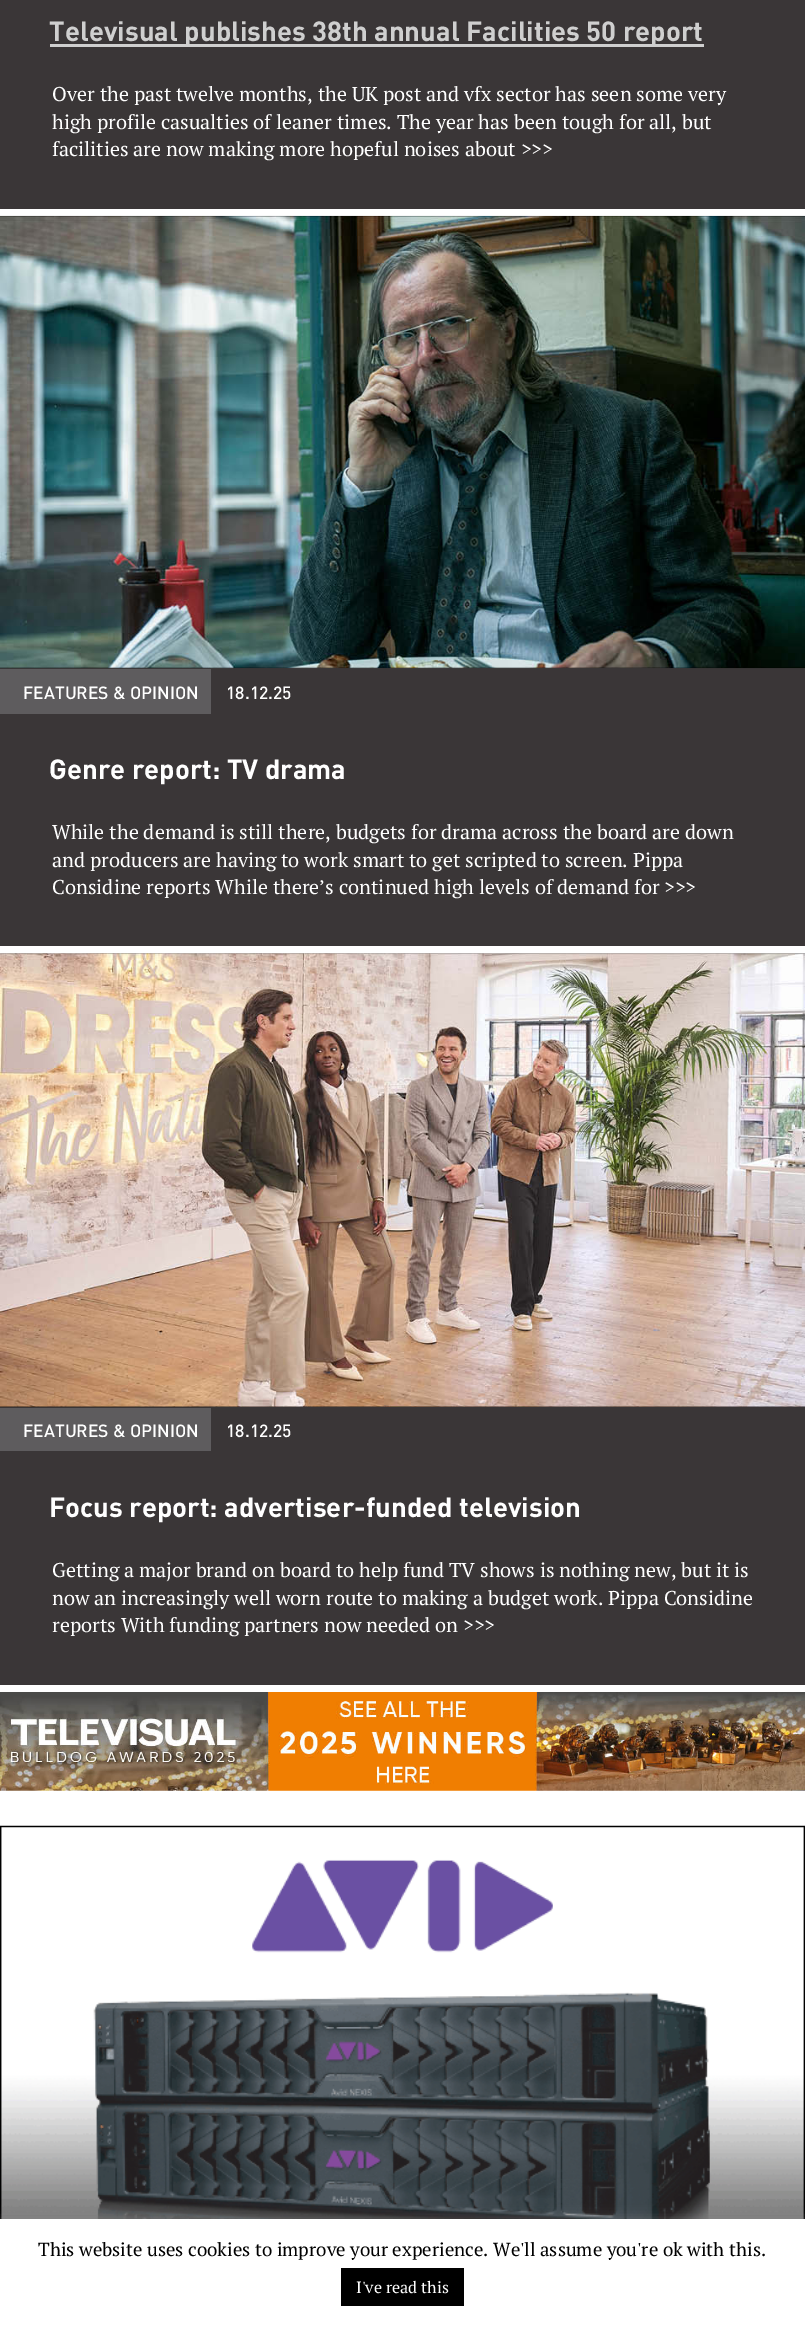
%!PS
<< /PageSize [805 2327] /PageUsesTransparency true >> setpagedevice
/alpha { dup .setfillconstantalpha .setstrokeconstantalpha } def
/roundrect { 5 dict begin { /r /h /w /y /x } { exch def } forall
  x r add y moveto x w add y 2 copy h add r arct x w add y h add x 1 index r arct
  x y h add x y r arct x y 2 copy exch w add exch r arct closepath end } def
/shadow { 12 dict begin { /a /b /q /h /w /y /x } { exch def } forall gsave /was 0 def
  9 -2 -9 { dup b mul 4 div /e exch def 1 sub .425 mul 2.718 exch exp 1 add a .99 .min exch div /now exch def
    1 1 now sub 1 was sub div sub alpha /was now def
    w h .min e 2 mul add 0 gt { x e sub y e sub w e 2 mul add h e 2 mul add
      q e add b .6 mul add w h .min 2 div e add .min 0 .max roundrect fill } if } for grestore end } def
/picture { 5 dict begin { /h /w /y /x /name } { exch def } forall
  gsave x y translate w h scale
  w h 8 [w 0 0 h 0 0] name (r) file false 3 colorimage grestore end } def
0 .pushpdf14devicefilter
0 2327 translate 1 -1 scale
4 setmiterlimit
1 setgray
0 0 805 2327 rectfill
0.227 0.212 0.216 setrgbcolor
0 0 805 209 rectfill
0.812 setgray
50 44 654 3 rectfill
/DIN-Bold [27.5 0 0 -27.5 0 0] selectfont
49 41 moveto (Televisual publishes 38th annual Facilities 50 report) show
/PTSerif-Regular [20 0 0 -20 0 0] selectfont
1 setgray
52 101 moveto (Over the past twelve months, the UK post and vfx sector has seen some very) show
52 129 moveto (high profile casualties of leaner times. The year has been tough for all, but) show
52 156 moveto (facilities are now making more hopeful noises about >>>) show
0.227 0.212 0.216 setrgbcolor
0 668 805 278 rectfill
(img1.rgb) 0 215 805 454 picture
0.369 0.361 0.369 setrgbcolor
0 669 211 45 rectfill
/DIN-Medium [17.5 0 0 -17.5 0 0] selectfont
1 setgray
23 699 moveto (FEATURES & OPINION) show
226 699 moveto (18.12.25) show
/DIN-Bold [27.5 0 0 -27.5 0 0] selectfont
49 779 moveto (Genre report: TV drama) show
/PTSerif-Regular [20 0 0 -20 0 0] selectfont
52 839 moveto (While the demand is still there, budgets for drama across the board are down) show
52 867 moveto (and producers are having to work smart to get scripted to screen. Pippa) show
52 894 moveto (Considine reports While there’s continued high levels of demand for >>>) show
0.227 0.212 0.216 setrgbcolor
0 1407 805 278 rectfill
(img2.rgb) 0 953 805 454 picture
0.369 0.361 0.369 setrgbcolor
0 1408 211 43 rectfill
/DIN-Medium [17.5 0 0 -17.5 0 0] selectfont
1 setgray
23 1437 moveto (FEATURES & OPINION) show
226 1437 moveto (18.12.25) show
/DIN-Bold [27.5 0 0 -27.5 0 0] selectfont
49 1517 moveto (Focus report: advertiser-funded television) show
/PTSerif-Regular [20 0 0 -20 0 0] selectfont
52 1577 moveto (Getting a major brand on board to help fund TV shows is nothing new, but it is) show
52 1605 moveto (now an increasingly well worn route to making a budget work. Pippa Considine) show
52 1632 moveto (reports With funding partners now needed on >>>) show
(img3.rgb) 0 1692 805 99 picture
(img4.rgb) 0 1825 805 394 picture
0.675 0.671 0.671 setrgbcolor
0 2218 805 108 0 6 0.3 shadow
1 setgray
0 2219 805 108 rectfill
/PTSerif-Regular [18.75 0 0 -18.75 0 0] selectfont
0 setgray
38 2256 moveto (This website uses cookies to improve your experience. We'll assume you're ok with this.) show
341 2268 123 38 rectfill
/PTSerif-Regular [16.25 0 0 -16.25 0 0] selectfont
1 setgray
356 2293 moveto (I've read this) show
.poppdf14devicefilter showpage
